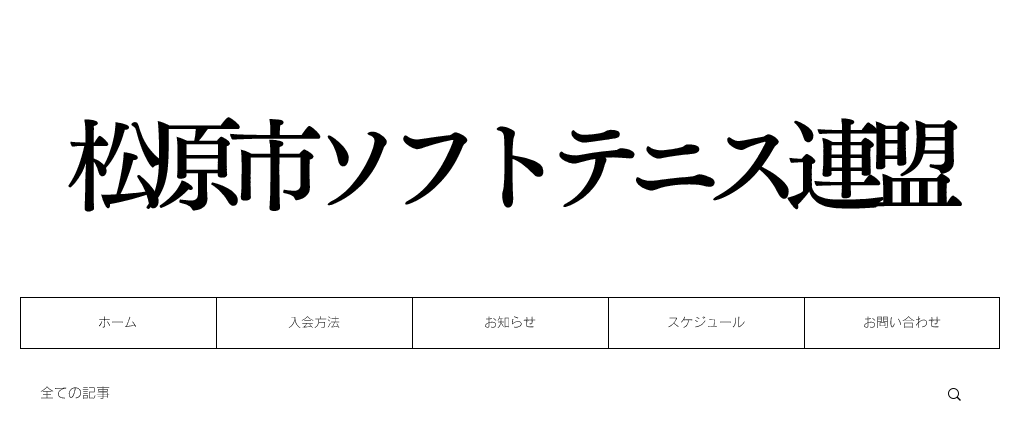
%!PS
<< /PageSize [1020 444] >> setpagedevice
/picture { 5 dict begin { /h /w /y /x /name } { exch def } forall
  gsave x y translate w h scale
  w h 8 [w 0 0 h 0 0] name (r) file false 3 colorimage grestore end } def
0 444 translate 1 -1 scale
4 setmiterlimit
1 setgray
0 0 1020 444 rectfill
/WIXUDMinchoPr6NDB-SemiBold [100 0 0 -100 0 0] selectfont
0 setgray
65 203 moveto -20 0 (松原市ソフトテニス連盟) ashow
20 297 980 1 rectfill
20 298 1 50 rectfill
/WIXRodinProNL-Light [13 0 0 -13 0 0] selectfont
98 327 moveto (ホーム) show
216 298 1 50 rectfill
288 327 moveto (入会方法) show
412 298 1 50 rectfill
484 327 moveto (お知らせ) show
608 298 1 50 rectfill
667 327 moveto (スケジュール) show
804 298 1 50 rectfill
863 327 moveto (お問い合わせ) show
999 298 1 50 rectfill
20 348 980 1 rectfill
/WIXRodinProNL-Light [14 0 0 -14 0 0] selectfont
40 398 moveto (全ての記事) show
(img1.rgb) 948 388 13 13 picture
showpage
